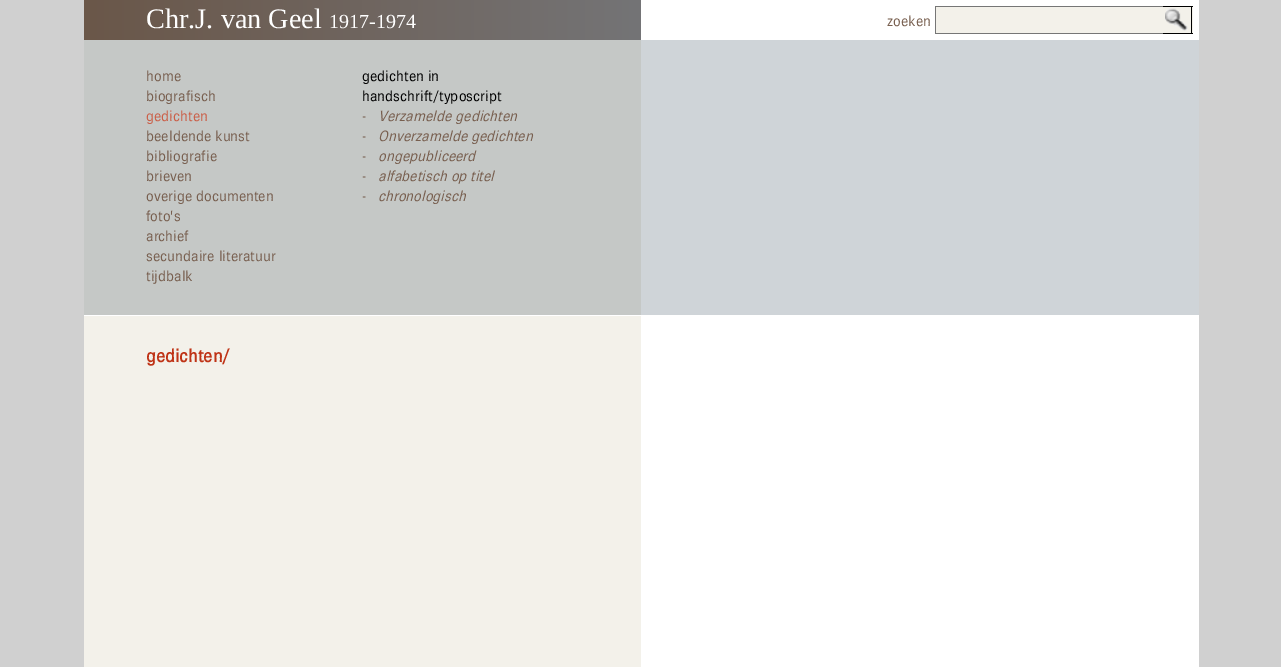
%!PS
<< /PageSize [1281 667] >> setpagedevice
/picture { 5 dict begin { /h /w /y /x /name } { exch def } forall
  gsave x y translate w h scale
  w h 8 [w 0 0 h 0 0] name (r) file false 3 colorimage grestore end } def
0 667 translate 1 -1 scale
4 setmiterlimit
0.816 setgray
0 0 1281 667 rectfill
1 setgray
84 0 1115 667 rectfill
gsave newpath 84 0 moveto 641 0 lineto 641 40 lineto 84 40 lineto closepath clip newpath
<< /ShadingType 2 /ColorSpace /DeviceRGB /Coords [84 20 641 20] /Extend [true true] /Function << /FunctionType 2 /Domain [0 1] /C0 [0.416 0.341 0.286] /C1 [0.455 0.455 0.463] /N 1 >> >> shfill grestore
/LiberationSerif-Regular [28.25 0 0 -28.25 0 0] selectfont
146 28 moveto (Chr.J. van Geel) show
/LiberationSerif-Regular [20 0 0 -20 0 0] selectfont
329 28 moveto (1917-1974) show
0.953 0.945 0.918 setrgbcolor
936 7 257 26 rectfill
0.463 setgray
935 6 228 1 rectfill
935 33 228 1 rectfill
935 6 1 28 rectfill
/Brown-Light [15 0 0 -15 0 0] selectfont
0.471 0.373 0.31 setrgbcolor
887 26 moveto (zoeken) show
(img1.rgb) 1165 8 23 23 picture
0 setgray
1163 6 30 1 rectfill
1191 6 1 28 rectfill
1163 33 30 1 rectfill
0.773 0.784 0.776 setrgbcolor
84 40 557 275 rectfill
0.471 0.373 0.31 setrgbcolor
146 81 moveto (home) show
146 101 moveto (biografisch) show
0.796 0.369 0.278 setrgbcolor
146 121 moveto (gedichten) show
0.471 0.373 0.31 setrgbcolor
146 141 moveto (beeldende kunst) show
146 161 moveto (bibliografie) show
146 181 moveto (brieven) show
146 201 moveto (overige documenten) show
146 221 moveto (foto's) show
146 241 moveto (archief) show
146 261 moveto (secundaire literatuur) show
146 281 moveto (tijdbalk) show
0 setgray
362 81 moveto (gedichten in) show
362 101 moveto (handschrift/typoscript) show
0.471 0.373 0.31 setrgbcolor
362 121 moveto (-) show
/Brown-LightItalic [15 0 0 -15 0 0] selectfont
378 121 moveto (Verzamelde gedichten) show
/Brown-Light [15 0 0 -15 0 0] selectfont
362 141 moveto (-) show
/Brown-LightItalic [15 0 0 -15 0 0] selectfont
378 141 moveto (Onverzamelde gedichten) show
/Brown-Light [15 0 0 -15 0 0] selectfont
362 161 moveto (-) show
/Brown-LightItalic [15 0 0 -15 0 0] selectfont
378 161 moveto (ongepubliceerd) show
/Brown-Light [15 0 0 -15 0 0] selectfont
362 181 moveto (-) show
/Brown-LightItalic [15 0 0 -15 0 0] selectfont
378 181 moveto (alfabetisch op titel) show
/Brown-Light [15 0 0 -15 0 0] selectfont
362 201 moveto (-) show
/Brown-LightItalic [15 0 0 -15 0 0] selectfont
378 201 moveto (chronologisch) show
0.812 0.831 0.847 setrgbcolor
641 40 558 275 rectfill
0.953 0.945 0.918 setrgbcolor
84 316 557 351 rectfill
/Brown-Bold [18.5 0 0 -18.5 0 0] selectfont
0.749 0.2 0.086 setrgbcolor
146 362 moveto (gedichten/) show
showpage
